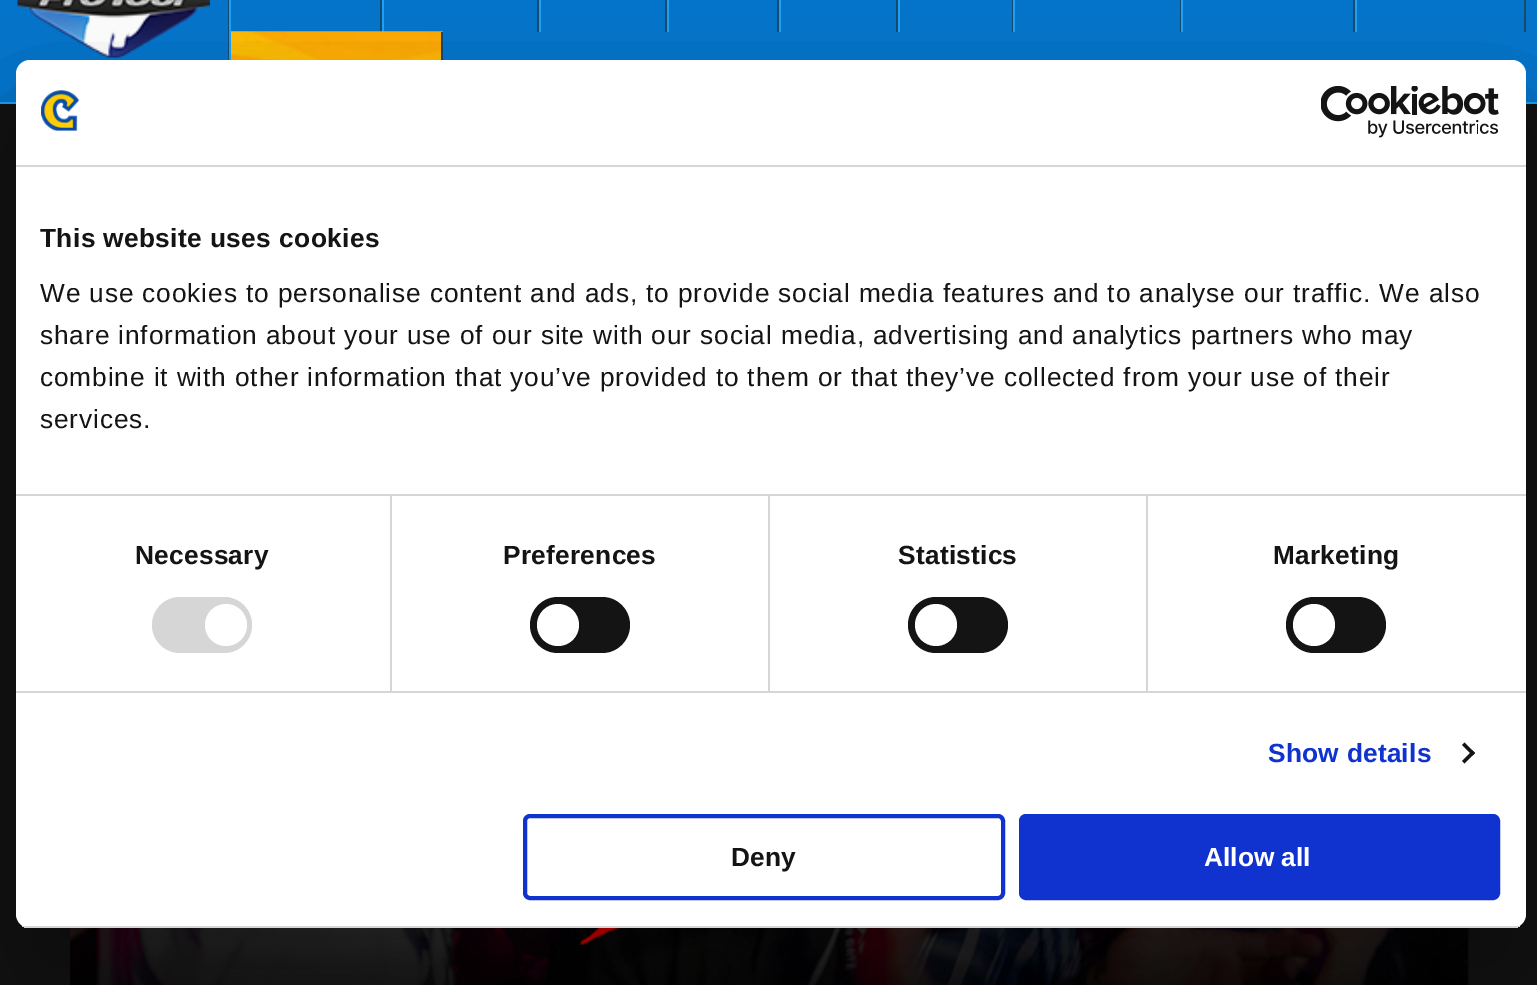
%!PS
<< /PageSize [1537 985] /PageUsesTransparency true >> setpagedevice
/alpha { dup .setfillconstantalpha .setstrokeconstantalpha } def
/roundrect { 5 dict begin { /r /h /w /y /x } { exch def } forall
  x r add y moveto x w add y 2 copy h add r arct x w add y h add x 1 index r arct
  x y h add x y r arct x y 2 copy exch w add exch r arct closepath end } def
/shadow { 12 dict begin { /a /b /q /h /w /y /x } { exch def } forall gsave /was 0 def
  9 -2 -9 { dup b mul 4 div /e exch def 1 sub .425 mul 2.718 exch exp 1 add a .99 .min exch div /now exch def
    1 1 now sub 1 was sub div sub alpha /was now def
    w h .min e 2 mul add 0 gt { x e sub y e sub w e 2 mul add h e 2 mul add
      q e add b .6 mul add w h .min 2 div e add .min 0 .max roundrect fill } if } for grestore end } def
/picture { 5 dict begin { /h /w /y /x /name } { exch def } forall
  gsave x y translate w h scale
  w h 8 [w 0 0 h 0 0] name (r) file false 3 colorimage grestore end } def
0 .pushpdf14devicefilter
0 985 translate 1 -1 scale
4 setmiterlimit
0.067 setgray
0 0 1537 985 rectfill
0.016 0.459 0.8 setrgbcolor
0 0 1537 102 rectfill
0.098 0.639 1 setrgbcolor
0 102 1537 2 rectfill
0.102 0.29 0.416 setrgbcolor
228 0 1 60 rectfill
380 0 2 32 rectfill
0.098 0.639 1 setrgbcolor
229 0 2 60 rectfill
0.102 0.29 0.416 setrgbcolor
537 0 2 32 rectfill
0.098 0.639 1 setrgbcolor
382 0 2 32 rectfill
0.102 0.29 0.416 setrgbcolor
665 0 2 32 rectfill
0.098 0.639 1 setrgbcolor
539 0 2 32 rectfill
0.102 0.29 0.416 setrgbcolor
777 0 2 32 rectfill
0.098 0.639 1 setrgbcolor
667 0 2 32 rectfill
0.102 0.29 0.416 setrgbcolor
896 0 2 32 rectfill
0.098 0.639 1 setrgbcolor
779 0 2 32 rectfill
0.102 0.29 0.416 setrgbcolor
1012 0 1 32 rectfill
0.098 0.639 1 setrgbcolor
898 0 2 32 rectfill
0.102 0.29 0.416 setrgbcolor
1180 0 1 32 rectfill
0.098 0.639 1 setrgbcolor
1013 0 2 32 rectfill
0.102 0.29 0.416 setrgbcolor
1353 0 2 32 rectfill
0.098 0.639 1 setrgbcolor
1181 0 2 32 rectfill
0.102 0.29 0.416 setrgbcolor
1524 0 2 32 rectfill
0.098 0.639 1 setrgbcolor
1355 0 2 32 rectfill
(img1.rgb) 231 31 212 29 picture
0.102 0.29 0.416 setrgbcolor
441 32 2 28 rectfill
(img2.rgb) 17 0 193 58 picture
(img3.rgb) 70 928 1399 57 picture
0 setgray
16 116 1510 868 14 59.5 0.3 shadow
1 setgray
16 60 1510 868 14 roundrect fill
0.839 setgray
16 165 1510 2 rectfill
(img4.rgb) 41 90 39 41 picture
(img5.rgb) 1321 86 178 52 picture
390 495 2 196 rectfill
768 495 2 196 rectfill
1146 495 2 196 rectfill
16 494 1510 2 rectfill
/LiberationSans-Bold [26.25 0 0 -26.25 0 0] selectfont
0.078 setgray
40 247 moveto 0.4 0 (This website uses cookies) ashow
/LiberationSans-Regular [26.25 0 0 -26.25 0 0] selectfont
40 302 moveto 0.88 0 (We use cookies to personalise content and ads, to provide social media features and to analyse our traffic. We also) ashow
40 344 moveto 0.88 0 (share information about your use of our site with our social media, advertising and analytics partners who may) ashow
40 386 moveto 0.88 0 (combine it with other information that you’ve provided to them or that they’ve collected from your use of their) ashow
40 428 moveto 0.88 0 (services.) ashow
0.839 setgray
16 691 1510 2 rectfill
/LiberationSans-Bold [26.25 0 0 -26.25 0 0] selectfont
0.078 setgray
135 564 moveto 0.25 0 (Necessary) ashow
0.839 setgray
152 597 100 56 28 roundrect fill
1 setgray
newpath 226 625 21 0 360 arc closepath fill
0.078 setgray
503 564 moveto 0.25 0 (Preferences) ashow
530 597 100 56 28 roundrect fill
1 setgray
newpath 558 625 21 0 360 arc closepath fill
0.078 setgray
898 564 moveto 0.25 0 (Statistics) ashow
908 597 100 56 28 roundrect fill
1 setgray
newpath 936 625 21 0 360 arc closepath fill
0.078 setgray
1273 564 moveto 0.25 0 (Marketing) ashow
1286 597 100 56 28 roundrect fill
1 setgray
newpath 1314 625 21 0 360 arc closepath fill
0.063 0.196 0.812 setrgbcolor
1268 762 moveto 0.25 0 (Show details) ashow
0.078 setgray
newpath 1464.5 742.5 moveto 1475 753 lineto 1472.5 755.5 lineto 1462 745 lineto closepath fill
newpath 1472.5 750.5 moveto 1475 753 lineto 1464.5 763.5 lineto 1462 761 lineto closepath fill
gsave
16 60 1510 868 14 roundrect clip newpath
0.839 setgray
16 926 1510 2 rectfill
grestore
0.063 0.196 0.812 setrgbcolor
4 setlinewidth
525 816 478 82 5 roundrect stroke
0.078 setgray
731 866 moveto (Deny) show
0.063 0.196 0.812 setrgbcolor
1021 816 477 82 5 roundrect gsave fill grestore
stroke
1 setgray
1204 866 moveto (Allow all) show
.poppdf14devicefilter showpage
